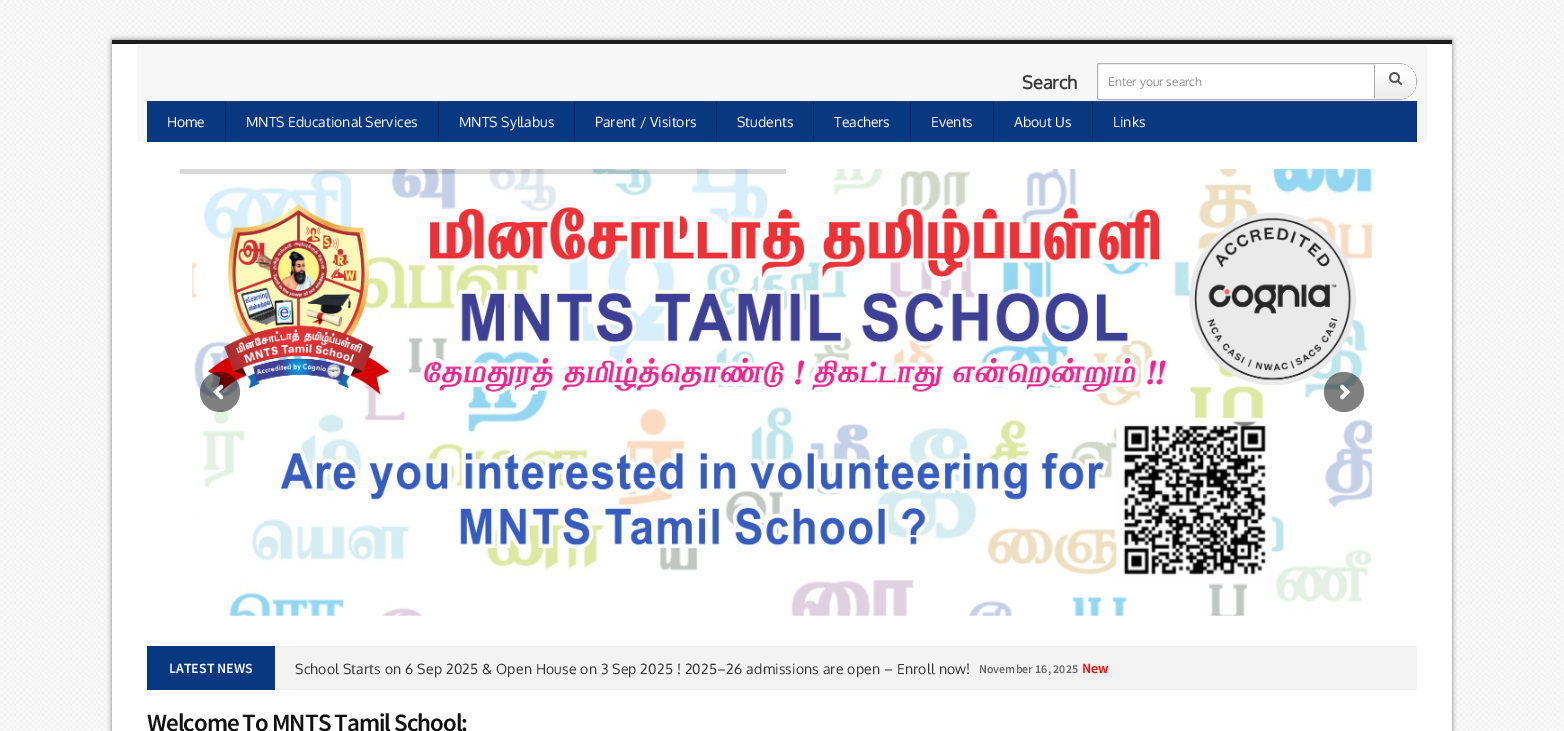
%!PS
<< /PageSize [1564 731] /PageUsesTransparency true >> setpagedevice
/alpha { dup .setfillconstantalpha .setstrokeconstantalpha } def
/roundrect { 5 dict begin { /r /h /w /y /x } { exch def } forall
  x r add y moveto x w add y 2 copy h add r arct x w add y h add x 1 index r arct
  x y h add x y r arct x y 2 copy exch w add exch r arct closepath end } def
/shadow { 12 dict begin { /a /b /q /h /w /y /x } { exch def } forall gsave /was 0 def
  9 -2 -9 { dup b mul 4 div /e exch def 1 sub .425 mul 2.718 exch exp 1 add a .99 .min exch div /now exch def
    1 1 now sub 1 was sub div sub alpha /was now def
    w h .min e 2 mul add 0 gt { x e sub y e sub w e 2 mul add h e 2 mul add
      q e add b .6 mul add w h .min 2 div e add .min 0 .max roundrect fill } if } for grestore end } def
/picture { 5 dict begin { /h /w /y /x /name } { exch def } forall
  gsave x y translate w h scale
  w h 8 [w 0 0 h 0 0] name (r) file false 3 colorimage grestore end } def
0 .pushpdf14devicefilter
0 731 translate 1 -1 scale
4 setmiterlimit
1 setgray
0 0 1564 731 rectfill
(img1.rgb) 0 0 1564 731 picture
0 setgray
112 40 1340 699 0 2.5 0.5 shadow
1 setgray
112 45 1340 686 rectfill
0.122 setgray
112 40 1340 4 rectfill
0.988 setgray
112 44 1340 1 rectfill
0.969 setgray
137 45 1290 97 rectfill
/Oxygen-Bold [18 0 0 -18 0 0] selectfont
0.227 setgray
1022 89 moveto (Search) show
1 setgray
newpath 1099 63.5 moveto 1398.5 63.5 lineto 1408.5 63.5 1416.5 71.5 1416.5 81.5 curveto 1416.5 91.5 1408.5 99.5 1398.5 99.5 curveto 1099 99.5 lineto 1098 99.5 1097.5 99 1097.5 98 curveto 1097.5 65 lineto 1097.5 64 1098 63.5 1099 63.5 curveto closepath gsave fill grestore
0.698 setgray
stroke
/Oxygen-Regular [12 0 0 -12 0 0] selectfont
0.58 setgray
1108 86 moveto (Enter your search) show
gsave newpath 1376 64 moveto 1398.5 64 lineto 1408 64 1416 72 1416 81.5 curveto 1416 91 1408 99 1398.5 99 curveto 1376 99 lineto 1375 99 1374 98 1374 97 curveto 1374 66 lineto 1374 65 1375 64 1376 64 curveto closepath clip newpath
<< /ShadingType 2 /ColorSpace /DeviceRGB /Coords [1396 64 1396 99] /Extend [true true] /Function << /FunctionType 3 /Domain [0 1] /Functions [<< /FunctionType 2 /Domain [0 1] /C0 [0.996 0.996 0.996] /C1 [0.996 0.996 0.996] /N 1 >> << /FunctionType 2 /Domain [0 1] /C0 [0.996 0.996 0.996] /C1 [0.918 0.918 0.918] /N 1 >>] /Bounds [0.29] /Encode [0 1 0 1] >> >> shfill grestore
0.663 setgray
1374 65 1 33 rectfill
(img2.rgb) 1389 72 13 13 picture
0.031 0.22 0.498 setrgbcolor
147 101 1270 41 rectfill
0.024 0.176 0.4 setrgbcolor
225 101 1 41 rectfill
/Oxygen-Regular [14 0 0 -14 0 0] selectfont
1 setgray
167 127 moveto (Home) show
0.024 0.176 0.4 setrgbcolor
438 101 1 41 rectfill
1 setgray
246 127 moveto (MNTS Educational Services) show
0.024 0.176 0.4 setrgbcolor
574 101 1 41 rectfill
1 setgray
459 127 moveto (MNTS Syllabus) show
0.024 0.176 0.4 setrgbcolor
716 101 1 41 rectfill
1 setgray
595 127 moveto (Parent / Visitors) show
0.024 0.176 0.4 setrgbcolor
813 101 1 41 rectfill
1 setgray
737 127 moveto (Students) show
0.024 0.176 0.4 setrgbcolor
910 101 1 41 rectfill
1 setgray
834 127 moveto (Teachers) show
0.024 0.176 0.4 setrgbcolor
993 101 1 41 rectfill
1 setgray
931 127 moveto (Events) show
0.024 0.176 0.4 setrgbcolor
1092 101 1 41 rectfill
1 setgray
1014 127 moveto (About Us) show
1113 127 moveto (Links) show
(img3.rgb) 192 169 1180 447 picture
0.15 alpha
0 setgray
180 169 606 5 rectfill
0.5 alpha
newpath 220 392 20 0 360 arc closepath fill
1 alpha
(img4.rgb) 213 384 11 16 picture
0.5 alpha
newpath 1344 392 20 0 360 arc closepath fill
1 alpha
(img5.rgb) 1340 384 11 16 picture
0.953 setgray
275 646 1142 44 rectfill
0.031 0.22 0.498 setrgbcolor
147 646 128 44 rectfill
/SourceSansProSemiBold-SemiBold [14 0 0 -14 0 0] selectfont
1 setgray
169 673 moveto (LATEST NEWS) show
/Oxygen-Regular [14 0 0 -14 0 0] selectfont
0.2 setgray
295 674 moveto 0.2 0 (School Starts on 6 Sep 2025 & Open House on 3 Sep 2025 ! 2025–26 admissions are open – Enroll now!) ashow
/SourceSansProSemiBold-SemiBold [12 0 0 -12 0 0] selectfont
0.4 setgray
979 673 moveto (November 16, 2025) show
/SourceSansProSemiBold-SemiBold [14 0 0 -14 0 0] selectfont
1 0 0 setrgbcolor
1082 673 moveto (New) show
/SourceSansProSemiBold-SemiBold [25 0 0 -25 0 0] selectfont
0.067 setgray
147 731 moveto -1 0 (Welcome To MNTS Tamil School:) ashow
.poppdf14devicefilter showpage
